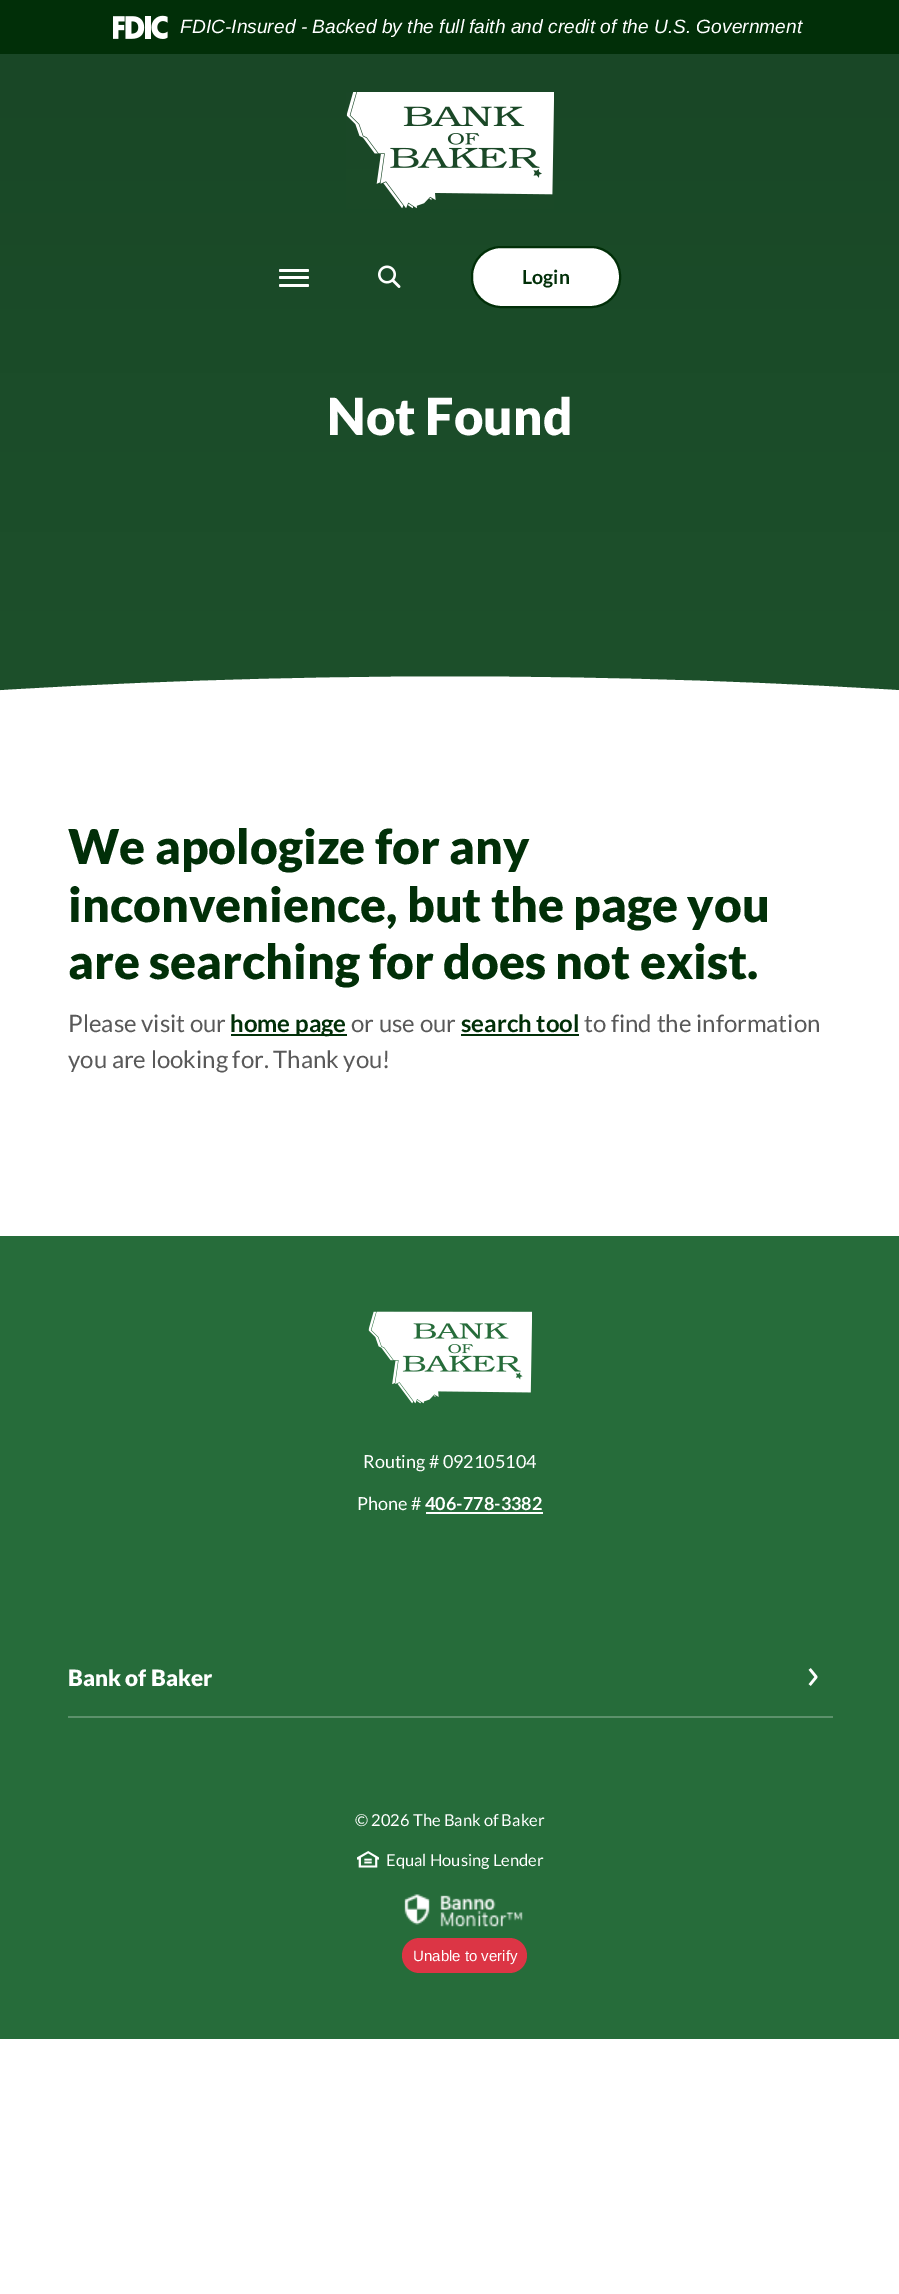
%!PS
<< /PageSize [899 2294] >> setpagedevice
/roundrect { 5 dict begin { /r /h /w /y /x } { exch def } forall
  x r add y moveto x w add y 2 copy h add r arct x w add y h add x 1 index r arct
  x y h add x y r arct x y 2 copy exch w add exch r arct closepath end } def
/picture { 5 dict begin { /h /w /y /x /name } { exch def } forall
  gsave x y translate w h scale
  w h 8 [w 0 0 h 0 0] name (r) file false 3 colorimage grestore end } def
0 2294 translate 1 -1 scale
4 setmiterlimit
1 setgray
0 0 899 2294 rectfill
0.004 0.184 0.031 setrgbcolor
0 0 899 54 rectfill
(img1.rgb) 113 15 55 24 picture
/LiberationSans-Italic [19.2 0 0 -19.2 0 0] selectfont
1 setgray
180 33 moveto (FDIC-Insured - Backed by the full faith and credit of the U.S. Government) show
gsave newpath 0 54 moveto 899 54 lineto 899 691 lineto 0 691 lineto closepath clip newpath
<< /ShadingType 2 /ColorSpace /DeviceRGB /Coords [450 0 450 743] /Extend [true true] /Function << /FunctionType 2 /Domain [0 1] /C0 [0.098 0.275 0.149] /C1 [0.114 0.318 0.169] /N 1 >> >> shfill grestore
(img2.rgb) 346 92 208 117 picture
279 269 30 3 1.5 roundrect fill
279 276 30 3 1.5 roundrect fill
279 284 30 3 1.5 roundrect fill
(img3.rgb) 378 265 23 23 picture
472 247 148 60 29 roundrect gsave fill grestore
0.004 0.184 0.031 setrgbcolor
2 setlinewidth
stroke
/Lato-Bold [19.5 0 0 -19.5 0 0] selectfont
522 284 moveto (Login) show
/Lato-Black [51 0 0 -51 0 0] selectfont
1 setgray
327 435 moveto (Not Found) show
gsave
0 609 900 134 rectclip
newpath -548 744 moveto 118 654 782 654 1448 744 curveto closepath fill
grestore
/Lato-Black [48 0 0 -48 0 0] selectfont
0.004 0.184 0.031 setrgbcolor
68 864 moveto (We apologize for any) show
68 922 moveto (inconvenience, but the page you) show
68 979 moveto (are searching for does not exist.) show
/Lato-Regular [24 0 0 -24 0 0] selectfont
0.349 setgray
68 1032 moveto (Please visit our) show
0.004 0.184 0.031 setrgbcolor
231 1034 116 2 rectfill
/Lato-Bold [24 0 0 -24 0 0] selectfont
230 1032 moveto (home page) show
/Lato-Regular [24 0 0 -24 0 0] selectfont
0.349 setgray
351 1032 moveto (or use our) show
/Lato-Bold [24 0 0 -24 0 0] selectfont
0.004 0.184 0.031 setrgbcolor
461 1032 moveto (search tool) show
461 1034 118 2 rectfill
/Lato-Regular [24 0 0 -24 0 0] selectfont
0.349 setgray
584 1032 moveto (to find the information) show
68 1068 moveto (you are looking for. Thank you!) show
0.149 0.424 0.227 setrgbcolor
0 1236 899 803 rectfill
(img4.rgb) 368 1311 164 93 picture
/Lato-Regular [18 0 0 -18 0 0] selectfont
1 setgray
363 1468 moveto (Routing # 092105104) show
357 1510 moveto (Phone #) show
/Lato-Bold [18 0 0 -18 0 0] selectfont
425 1510 moveto (406-778-3382) show
426 1512 117 2 rectfill
0.361 0.569 0.42 setrgbcolor
68 1716 765 2 rectfill
/Lato-Black [22.5 0 0 -22.5 0 0] selectfont
1 setgray
68 1686 moveto (Bank of Baker) show
(img5.rgb) 808 1668 10 18 picture
/Lato-Regular [16.5 0 0 -16.5 0 0] selectfont
355 1826 moveto (© 2026 The Bank of Baker) show
(img6.rgb) 357 1851 22 17 picture
386 1866 moveto (Equal Housing Lender) show
(img7.rgb) 404 1894 119 33 picture
0.863 0.208 0.271 setrgbcolor
402 1938 125 35 17.5 roundrect fill
/LiberationSans-Regular [15 0 0 -15 0 0] selectfont
1 setgray
413 1961 moveto (Unable to verify) show
showpage
